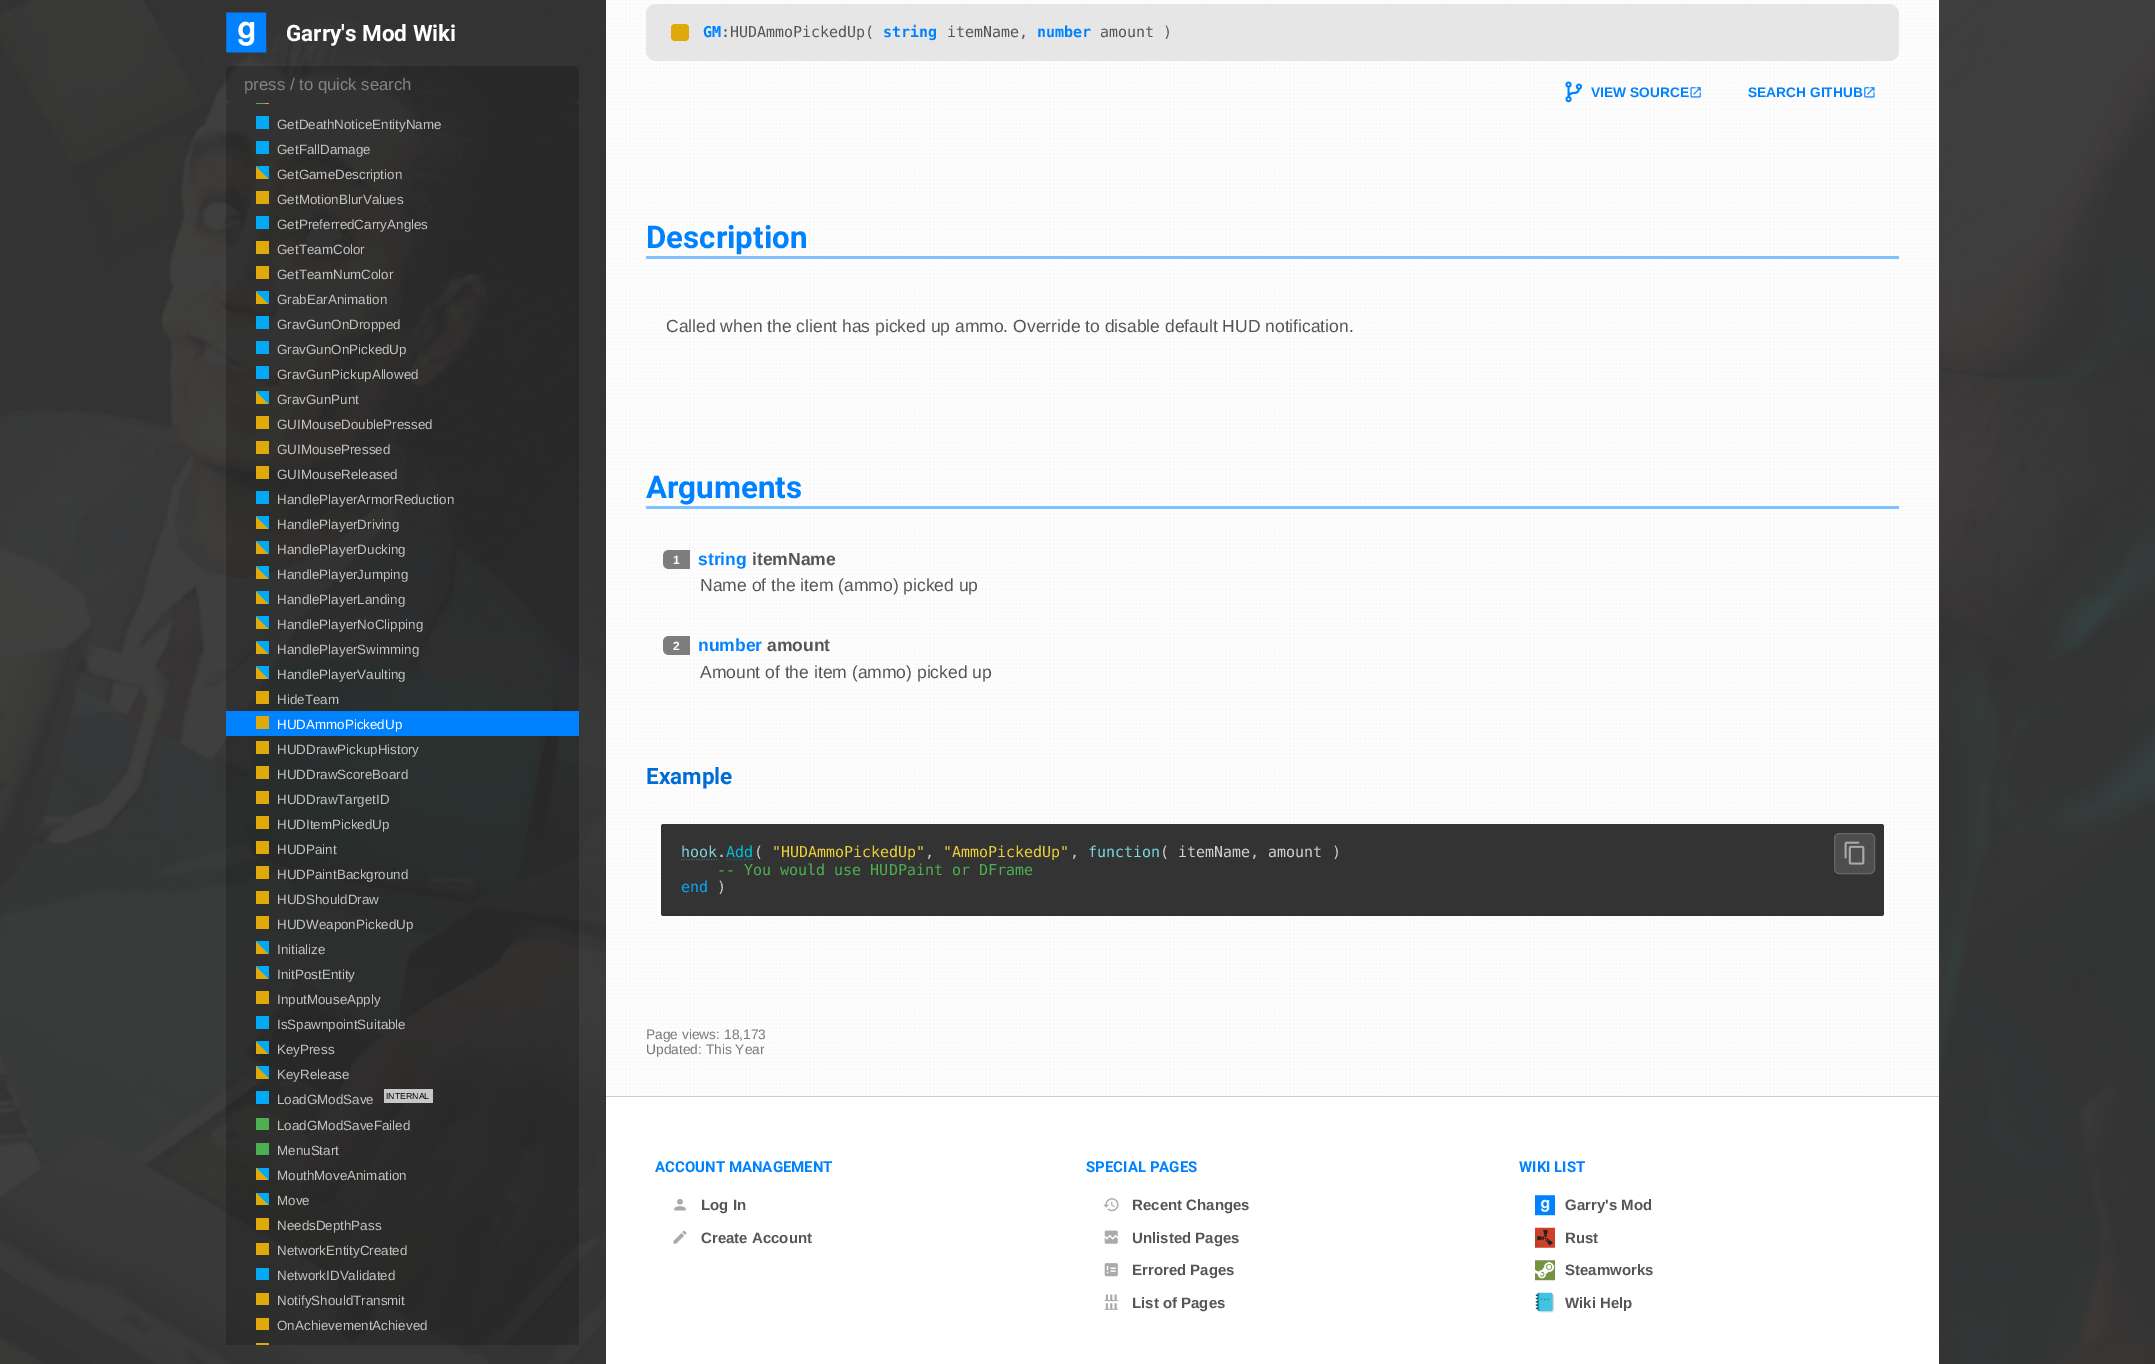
%!PS
<< /PageSize [2155 1364] /PageUsesTransparency true >> setpagedevice
/alpha { dup .setfillconstantalpha .setstrokeconstantalpha } def
/roundrect { 5 dict begin { /r /h /w /y /x } { exch def } forall
  x r add y moveto x w add y 2 copy h add r arct x w add y h add x 1 index r arct
  x y h add x y r arct x y 2 copy exch w add exch r arct closepath end } def
/picture { 5 dict begin { /h /w /y /x /name } { exch def } forall
  gsave x y translate w h scale
  w h 8 [w 0 0 h 0 0] name (r) file false 3 colorimage grestore end } def
0 .pushpdf14devicefilter
0 1364 translate 1 -1 scale
4 setmiterlimit
1 setgray
0 0 2155 1364 rectfill
(img1.rgb) 0 0 2155 1364 picture
(img2.rgb) 226 12 41 41 picture
/Heebo-Bold [22.5 0 0 -22.5 0 0] selectfont
286 41 moveto (Garry's Mod Wiki) show
0.2 alpha
0 setgray
226 66 353 37 6 roundrect fill
/LiberationSans-Regular [16.75 0 0 -16.75 0 0] selectfont
1 alpha
0.514 setgray
244 90 moveto (press / to quick search) show
0.2 alpha
0 setgray
226 103 353 1242 rectfill
1 alpha
gsave newpath 256 103 moveto 269 103 lineto 269 104 lineto 256 104 lineto closepath clip newpath
<< /ShadingType 2 /ColorSpace /DeviceRGB /Coords [256 104 269 91] /Extend [true true] /Function << /FunctionType 3 /Domain [0 1] /Functions [<< /FunctionType 2 /Domain [0 1] /C0 [0.298 0.686 0.314] /C1 [0.298 0.686 0.314] /N 1 >> << /FunctionType 2 /Domain [0 1] /C0 [0.871 0.663 0.035] /C1 [0.871 0.663 0.035] /N 1 >> << /FunctionType 2 /Domain [0 1] /C0 [0.012 0.663 0.957] /C1 [0.012 0.663 0.957] /N 1 >>] /Bounds [0.36 0.65] /Encode [0 1 0 1 0 1] >> >> shfill grestore
0.012 0.663 0.957 setrgbcolor
256 116 13 13 rectfill
/LiberationSans-Regular [13.4 0 0 -13.4 0 0] selectfont
0.765 0.765 0.761 setrgbcolor
277 129 moveto (GetDeathNoticeEntityName) show
0.012 0.663 0.957 setrgbcolor
256 141 13 13 rectfill
0.765 0.765 0.761 setrgbcolor
277 154 moveto (GetFallDamage) show
gsave newpath 256 166 moveto 269 166 lineto 269 179 lineto 256 179 lineto closepath clip newpath
<< /ShadingType 2 /ColorSpace /DeviceRGB /Coords [256 179 269 166] /Extend [true true] /Function << /FunctionType 3 /Domain [0 1] /Functions [<< /FunctionType 2 /Domain [0 1] /C0 [0.871 0.663 0.035] /C1 [0.871 0.663 0.035] /N 1 >> << /FunctionType 2 /Domain [0 1] /C0 [0.012 0.663 0.957] /C1 [0.012 0.663 0.957] /N 1 >>] /Bounds [0.5] /Encode [0 1 0 1] >> >> shfill grestore
277 179 moveto (GetGameDescription) show
0.871 0.663 0.035 setrgbcolor
256 191 13 13 rectfill
0.765 0.765 0.761 setrgbcolor
277 204 moveto (GetMotionBlurValues) show
0.012 0.663 0.957 setrgbcolor
256 216 13 13 rectfill
0.765 0.765 0.761 setrgbcolor
277 229 moveto (GetPreferredCarryAngles) show
0.871 0.663 0.035 setrgbcolor
256 241 13 13 rectfill
0.765 0.765 0.761 setrgbcolor
277 254 moveto (GetTeamColor) show
0.871 0.663 0.035 setrgbcolor
256 266 13 13 rectfill
0.765 0.765 0.761 setrgbcolor
277 279 moveto (GetTeamNumColor) show
gsave newpath 256 291 moveto 269 291 lineto 269 304 lineto 256 304 lineto closepath clip newpath
<< /ShadingType 2 /ColorSpace /DeviceRGB /Coords [256 304 269 291] /Extend [true true] /Function << /FunctionType 3 /Domain [0 1] /Functions [<< /FunctionType 2 /Domain [0 1] /C0 [0.871 0.663 0.035] /C1 [0.871 0.663 0.035] /N 1 >> << /FunctionType 2 /Domain [0 1] /C0 [0.012 0.663 0.957] /C1 [0.012 0.663 0.957] /N 1 >>] /Bounds [0.5] /Encode [0 1 0 1] >> >> shfill grestore
277 304 moveto (GrabEarAnimation) show
0.012 0.663 0.957 setrgbcolor
256 316 13 13 rectfill
0.765 0.765 0.761 setrgbcolor
277 329 moveto (GravGunOnDropped) show
0.012 0.663 0.957 setrgbcolor
256 341 13 13 rectfill
0.765 0.765 0.761 setrgbcolor
277 354 moveto (GravGunOnPickedUp) show
0.012 0.663 0.957 setrgbcolor
256 366 13 13 rectfill
0.765 0.765 0.761 setrgbcolor
277 379 moveto (GravGunPickupAllowed) show
gsave newpath 256 391 moveto 269 391 lineto 269 404 lineto 256 404 lineto closepath clip newpath
<< /ShadingType 2 /ColorSpace /DeviceRGB /Coords [256 404 269 391] /Extend [true true] /Function << /FunctionType 3 /Domain [0 1] /Functions [<< /FunctionType 2 /Domain [0 1] /C0 [0.871 0.663 0.035] /C1 [0.871 0.663 0.035] /N 1 >> << /FunctionType 2 /Domain [0 1] /C0 [0.012 0.663 0.957] /C1 [0.012 0.663 0.957] /N 1 >>] /Bounds [0.5] /Encode [0 1 0 1] >> >> shfill grestore
277 404 moveto (GravGunPunt) show
0.871 0.663 0.035 setrgbcolor
256 416 13 13 rectfill
0.765 0.765 0.761 setrgbcolor
277 429 moveto (GUIMouseDoublePressed) show
0.871 0.663 0.035 setrgbcolor
256 441 13 13 rectfill
0.765 0.765 0.761 setrgbcolor
277 454 moveto (GUIMousePressed) show
0.871 0.663 0.035 setrgbcolor
256 466 13 13 rectfill
0.765 0.765 0.761 setrgbcolor
277 479 moveto (GUIMouseReleased) show
0.012 0.663 0.957 setrgbcolor
256 491 13 13 rectfill
0.765 0.765 0.761 setrgbcolor
277 504 moveto (HandlePlayerArmorReduction) show
gsave newpath 256 516 moveto 269 516 lineto 269 529 lineto 256 529 lineto closepath clip newpath
<< /ShadingType 2 /ColorSpace /DeviceRGB /Coords [256 529 269 516] /Extend [true true] /Function << /FunctionType 3 /Domain [0 1] /Functions [<< /FunctionType 2 /Domain [0 1] /C0 [0.871 0.663 0.035] /C1 [0.871 0.663 0.035] /N 1 >> << /FunctionType 2 /Domain [0 1] /C0 [0.012 0.663 0.957] /C1 [0.012 0.663 0.957] /N 1 >>] /Bounds [0.5] /Encode [0 1 0 1] >> >> shfill grestore
277 529 moveto (HandlePlayerDriving) show
gsave newpath 256 541 moveto 269 541 lineto 269 554 lineto 256 554 lineto closepath clip newpath
<< /ShadingType 2 /ColorSpace /DeviceRGB /Coords [256 554 269 541] /Extend [true true] /Function << /FunctionType 3 /Domain [0 1] /Functions [<< /FunctionType 2 /Domain [0 1] /C0 [0.871 0.663 0.035] /C1 [0.871 0.663 0.035] /N 1 >> << /FunctionType 2 /Domain [0 1] /C0 [0.012 0.663 0.957] /C1 [0.012 0.663 0.957] /N 1 >>] /Bounds [0.5] /Encode [0 1 0 1] >> >> shfill grestore
277 554 moveto (HandlePlayerDucking) show
gsave newpath 256 566 moveto 269 566 lineto 269 579 lineto 256 579 lineto closepath clip newpath
<< /ShadingType 2 /ColorSpace /DeviceRGB /Coords [256 579 269 566] /Extend [true true] /Function << /FunctionType 3 /Domain [0 1] /Functions [<< /FunctionType 2 /Domain [0 1] /C0 [0.871 0.663 0.035] /C1 [0.871 0.663 0.035] /N 1 >> << /FunctionType 2 /Domain [0 1] /C0 [0.012 0.663 0.957] /C1 [0.012 0.663 0.957] /N 1 >>] /Bounds [0.5] /Encode [0 1 0 1] >> >> shfill grestore
277 579 moveto (HandlePlayerJumping) show
gsave newpath 256 591 moveto 269 591 lineto 269 604 lineto 256 604 lineto closepath clip newpath
<< /ShadingType 2 /ColorSpace /DeviceRGB /Coords [256 604 269 591] /Extend [true true] /Function << /FunctionType 3 /Domain [0 1] /Functions [<< /FunctionType 2 /Domain [0 1] /C0 [0.871 0.663 0.035] /C1 [0.871 0.663 0.035] /N 1 >> << /FunctionType 2 /Domain [0 1] /C0 [0.012 0.663 0.957] /C1 [0.012 0.663 0.957] /N 1 >>] /Bounds [0.5] /Encode [0 1 0 1] >> >> shfill grestore
277 604 moveto (HandlePlayerLanding) show
gsave newpath 256 616 moveto 269 616 lineto 269 629 lineto 256 629 lineto closepath clip newpath
<< /ShadingType 2 /ColorSpace /DeviceRGB /Coords [256 629 269 616] /Extend [true true] /Function << /FunctionType 3 /Domain [0 1] /Functions [<< /FunctionType 2 /Domain [0 1] /C0 [0.871 0.663 0.035] /C1 [0.871 0.663 0.035] /N 1 >> << /FunctionType 2 /Domain [0 1] /C0 [0.012 0.663 0.957] /C1 [0.012 0.663 0.957] /N 1 >>] /Bounds [0.5] /Encode [0 1 0 1] >> >> shfill grestore
277 629 moveto (HandlePlayerNoClipping) show
gsave newpath 256 641 moveto 269 641 lineto 269 654 lineto 256 654 lineto closepath clip newpath
<< /ShadingType 2 /ColorSpace /DeviceRGB /Coords [256 654 269 641] /Extend [true true] /Function << /FunctionType 3 /Domain [0 1] /Functions [<< /FunctionType 2 /Domain [0 1] /C0 [0.871 0.663 0.035] /C1 [0.871 0.663 0.035] /N 1 >> << /FunctionType 2 /Domain [0 1] /C0 [0.012 0.663 0.957] /C1 [0.012 0.663 0.957] /N 1 >>] /Bounds [0.5] /Encode [0 1 0 1] >> >> shfill grestore
277 654 moveto (HandlePlayerSwimming) show
gsave newpath 256 666 moveto 269 666 lineto 269 679 lineto 256 679 lineto closepath clip newpath
<< /ShadingType 2 /ColorSpace /DeviceRGB /Coords [256 679 269 666] /Extend [true true] /Function << /FunctionType 3 /Domain [0 1] /Functions [<< /FunctionType 2 /Domain [0 1] /C0 [0.871 0.663 0.035] /C1 [0.871 0.663 0.035] /N 1 >> << /FunctionType 2 /Domain [0 1] /C0 [0.012 0.663 0.957] /C1 [0.012 0.663 0.957] /N 1 >>] /Bounds [0.5] /Encode [0 1 0 1] >> >> shfill grestore
277 679 moveto (HandlePlayerVaulting) show
0.871 0.663 0.035 setrgbcolor
256 691 13 13 rectfill
0.765 0.765 0.761 setrgbcolor
277 704 moveto (HideTeam) show
0 0.51 1 setrgbcolor
226 711 353 25 rectfill
0.871 0.663 0.035 setrgbcolor
256 716 13 13 rectfill
1 setgray
277 729 moveto (HUDAmmoPickedUp) show
0.871 0.663 0.035 setrgbcolor
256 741 13 13 rectfill
0.765 0.765 0.761 setrgbcolor
277 754 moveto (HUDDrawPickupHistory) show
0.871 0.663 0.035 setrgbcolor
256 766 13 13 rectfill
0.765 0.765 0.761 setrgbcolor
277 779 moveto (HUDDrawScoreBoard) show
0.871 0.663 0.035 setrgbcolor
256 791 13 13 rectfill
0.765 0.765 0.761 setrgbcolor
277 804 moveto (HUDDrawTargetID) show
0.871 0.663 0.035 setrgbcolor
256 816 13 13 rectfill
0.765 0.765 0.761 setrgbcolor
277 829 moveto (HUDItemPickedUp) show
0.871 0.663 0.035 setrgbcolor
256 841 13 13 rectfill
0.765 0.765 0.761 setrgbcolor
277 854 moveto (HUDPaint) show
0.871 0.663 0.035 setrgbcolor
256 866 13 13 rectfill
0.765 0.765 0.761 setrgbcolor
277 879 moveto (HUDPaintBackground) show
0.871 0.663 0.035 setrgbcolor
256 891 13 13 rectfill
0.765 0.765 0.761 setrgbcolor
277 904 moveto (HUDShouldDraw) show
0.871 0.663 0.035 setrgbcolor
256 916 13 13 rectfill
0.765 0.765 0.761 setrgbcolor
277 929 moveto (HUDWeaponPickedUp) show
gsave newpath 256 941 moveto 269 941 lineto 269 954 lineto 256 954 lineto closepath clip newpath
<< /ShadingType 2 /ColorSpace /DeviceRGB /Coords [256 954 269 941] /Extend [true true] /Function << /FunctionType 3 /Domain [0 1] /Functions [<< /FunctionType 2 /Domain [0 1] /C0 [0.871 0.663 0.035] /C1 [0.871 0.663 0.035] /N 1 >> << /FunctionType 2 /Domain [0 1] /C0 [0.012 0.663 0.957] /C1 [0.012 0.663 0.957] /N 1 >>] /Bounds [0.5] /Encode [0 1 0 1] >> >> shfill grestore
277 954 moveto (Initialize) show
gsave newpath 256 966 moveto 269 966 lineto 269 979 lineto 256 979 lineto closepath clip newpath
<< /ShadingType 2 /ColorSpace /DeviceRGB /Coords [256 979 269 966] /Extend [true true] /Function << /FunctionType 3 /Domain [0 1] /Functions [<< /FunctionType 2 /Domain [0 1] /C0 [0.871 0.663 0.035] /C1 [0.871 0.663 0.035] /N 1 >> << /FunctionType 2 /Domain [0 1] /C0 [0.012 0.663 0.957] /C1 [0.012 0.663 0.957] /N 1 >>] /Bounds [0.5] /Encode [0 1 0 1] >> >> shfill grestore
277 979 moveto (InitPostEntity) show
0.871 0.663 0.035 setrgbcolor
256 991 13 13 rectfill
0.765 0.765 0.761 setrgbcolor
277 1004 moveto (InputMouseApply) show
0.012 0.663 0.957 setrgbcolor
256 1016 13 13 rectfill
0.765 0.765 0.761 setrgbcolor
277 1029 moveto (IsSpawnpointSuitable) show
gsave newpath 256 1041 moveto 269 1041 lineto 269 1054 lineto 256 1054 lineto closepath clip newpath
<< /ShadingType 2 /ColorSpace /DeviceRGB /Coords [256 1054 269 1041] /Extend [true true] /Function << /FunctionType 3 /Domain [0 1] /Functions [<< /FunctionType 2 /Domain [0 1] /C0 [0.871 0.663 0.035] /C1 [0.871 0.663 0.035] /N 1 >> << /FunctionType 2 /Domain [0 1] /C0 [0.012 0.663 0.957] /C1 [0.012 0.663 0.957] /N 1 >>] /Bounds [0.5] /Encode [0 1 0 1] >> >> shfill grestore
277 1054 moveto (KeyPress) show
gsave newpath 256 1066 moveto 269 1066 lineto 269 1079 lineto 256 1079 lineto closepath clip newpath
<< /ShadingType 2 /ColorSpace /DeviceRGB /Coords [256 1079 269 1066] /Extend [true true] /Function << /FunctionType 3 /Domain [0 1] /Functions [<< /FunctionType 2 /Domain [0 1] /C0 [0.871 0.663 0.035] /C1 [0.871 0.663 0.035] /N 1 >> << /FunctionType 2 /Domain [0 1] /C0 [0.012 0.663 0.957] /C1 [0.012 0.663 0.957] /N 1 >>] /Bounds [0.5] /Encode [0 1 0 1] >> >> shfill grestore
277 1079 moveto (KeyRelease) show
0.012 0.663 0.957 setrgbcolor
256 1091 13 13 rectfill
0.765 0.765 0.761 setrgbcolor
277 1104 moveto (LoadGModSave) show
0.78 setgray
384 1089 49 14 rectfill
/LiberationSans-Regular [8.75 0 0 -8.75 0 0] selectfont
0 setgray
386 1099 moveto (INTERNAL) show
0.298 0.686 0.314 setrgbcolor
256 1118 13 12 rectfill
/LiberationSans-Regular [13.4 0 0 -13.4 0 0] selectfont
0.765 0.765 0.761 setrgbcolor
277 1130 moveto (LoadGModSaveFailed) show
0.298 0.686 0.314 setrgbcolor
256 1143 13 12 rectfill
0.765 0.765 0.761 setrgbcolor
277 1155 moveto (MenuStart) show
gsave newpath 256 1168 moveto 269 1168 lineto 269 1180 lineto 256 1180 lineto closepath clip newpath
<< /ShadingType 2 /ColorSpace /DeviceRGB /Coords [256 1180 269 1168] /Extend [true true] /Function << /FunctionType 3 /Domain [0 1] /Functions [<< /FunctionType 2 /Domain [0 1] /C0 [0.871 0.663 0.035] /C1 [0.871 0.663 0.035] /N 1 >> << /FunctionType 2 /Domain [0 1] /C0 [0.012 0.663 0.957] /C1 [0.012 0.663 0.957] /N 1 >>] /Bounds [0.5] /Encode [0 1 0 1] >> >> shfill grestore
277 1180 moveto (MouthMoveAnimation) show
gsave newpath 256 1193 moveto 269 1193 lineto 269 1205 lineto 256 1205 lineto closepath clip newpath
<< /ShadingType 2 /ColorSpace /DeviceRGB /Coords [256 1205 269 1193] /Extend [true true] /Function << /FunctionType 3 /Domain [0 1] /Functions [<< /FunctionType 2 /Domain [0 1] /C0 [0.871 0.663 0.035] /C1 [0.871 0.663 0.035] /N 1 >> << /FunctionType 2 /Domain [0 1] /C0 [0.012 0.663 0.957] /C1 [0.012 0.663 0.957] /N 1 >>] /Bounds [0.5] /Encode [0 1 0 1] >> >> shfill grestore
277 1205 moveto (Move) show
0.871 0.663 0.035 setrgbcolor
256 1218 13 12 rectfill
0.765 0.765 0.761 setrgbcolor
277 1230 moveto (NeedsDepthPass) show
0.871 0.663 0.035 setrgbcolor
256 1243 13 12 rectfill
0.765 0.765 0.761 setrgbcolor
277 1255 moveto (NetworkEntityCreated) show
0.012 0.663 0.957 setrgbcolor
256 1268 13 12 rectfill
0.765 0.765 0.761 setrgbcolor
277 1280 moveto (NetworkIDValidated) show
0.871 0.663 0.035 setrgbcolor
256 1293 13 12 rectfill
0.765 0.765 0.761 setrgbcolor
277 1305 moveto (NotifyShouldTransmit) show
0.871 0.663 0.035 setrgbcolor
256 1318 13 12 rectfill
0.765 0.765 0.761 setrgbcolor
277 1330 moveto (OnAchievementAchieved) show
0.871 0.663 0.035 setrgbcolor
256 1343 13 2 rectfill
(img3.rgb) 606 0 1333 1096 picture
0.902 setgray
646 4 1253 57 10 roundrect fill
0.871 0.663 0.035 setrgbcolor
671 24 18 17 4 roundrect fill
/DejaVuSansMono-Bold [15 0 0 -15 0 0] selectfont
0 0.51 1 setrgbcolor
703 37 moveto (GM) show
/DejaVuSansMono-Regular [15 0 0 -15 0 0] selectfont
0.333 setgray
721 37 moveto (:HUDAmmoPickedUp\() show
/DejaVuSansMono-Bold [15 0 0 -15 0 0] selectfont
0 0.51 1 setrgbcolor
883 37 moveto (string) show
/DejaVuSansMono-Regular [15 0 0 -15 0 0] selectfont
0.333 setgray
947 37 moveto (itemName,) show
/DejaVuSansMono-Bold [15 0 0 -15 0 0] selectfont
0 0.51 1 setrgbcolor
1037 37 moveto (number) show
/DejaVuSansMono-Regular [15 0 0 -15 0 0] selectfont
0.333 setgray
1100 37 moveto (amount \)) show
(img4.rgb) 1565 81 18 22 picture
/LiberationSans-Bold [13.75 0 0 -13.75 0 0] selectfont
0 0.51 1 setrgbcolor
1591 97 moveto (VIEW SOURCE) show
(img5.rgb) 1690 87 11 11 picture
1748 97 moveto (SEARCH GITHUB) show
(img6.rgb) 1864 87 11 11 picture
0.502 0.757 1 setrgbcolor
646 256 1253 3 rectfill
/Heebo-Bold [31.25 0 0 -31.25 0 0] selectfont
0 0.51 1 setrgbcolor
646 248 moveto (Description) show
/LiberationSans-Regular [17.5 0 0 -17.5 0 0] selectfont
0.333 setgray
666 332 moveto (Called when the client has picked up ammo. Override to disable default HUD notification.) show
0.502 0.757 1 setrgbcolor
646 506 1253 3 rectfill
/Heebo-Bold [31.25 0 0 -31.25 0 0] selectfont
0 0.51 1 setrgbcolor
646 498 moveto (Arguments) show
0.49 setgray
newpath 669 550 moveto 690 550 lineto 690 569 lineto 669 569 lineto 665.5 569 663 566.5 663 563 curveto 663 556 lineto 663 552.5 665.5 550 669 550 curveto closepath fill
/LiberationSans-Bold [12 0 0 -12 0 0] selectfont
1 setgray
673 564 moveto (1) show
/LiberationSans-Bold [17.5 0 0 -17.5 0 0] selectfont
0 0.51 1 setrgbcolor
698 565 moveto (string) show
0.333 setgray
752 565 moveto (itemName) show
/LiberationSans-Regular [17.5 0 0 -17.5 0 0] selectfont
700 591 moveto (Name of the item \(ammo\) picked up) show
0.49 setgray
newpath 669 636 moveto 690 636 lineto 690 655 lineto 669 655 lineto 665.5 655 663 652.5 663 649 curveto 663 642 lineto 663 638.5 665.5 636 669 636 curveto closepath fill
/LiberationSans-Bold [12 0 0 -12 0 0] selectfont
1 setgray
673 650 moveto (2) show
/LiberationSans-Bold [17.5 0 0 -17.5 0 0] selectfont
0 0.51 1 setrgbcolor
698 651 moveto (number) show
0.333 setgray
767 651 moveto (amount) show
/LiberationSans-Regular [17.5 0 0 -17.5 0 0] selectfont
700 678 moveto (Amount of the item \(ammo\) picked up) show
/Heebo-Bold [22.5 0 0 -22.5 0 0] selectfont
0 0.424 0.835 setrgbcolor
646 784 moveto (Example) show
0.2 setgray
661 824 1223 92 2.5 roundrect fill
/DejaVuSansMono-Regular [15 0 0 -15 0 0] selectfont
0.506 0.816 0.855 setrgbcolor
681 857 moveto (hook) show
0.29 0.384 0.396 setrgbcolor
1.2 setlinewidth
[1.25 1.25] 0 setdash
newpath 681 859.5 moveto 717.5 859.5 lineto stroke
0.816 setgray
717 857 moveto (.) show
0 0.737 0.831 setrgbcolor
726 857 moveto (Add) show
0.141 0.361 0.388 setrgbcolor
newpath 726.5 859.5 moveto 753.5 859.5 lineto stroke
0.816 setgray
754 857 moveto (\() show
0.925 0.808 0.224 setrgbcolor
772 857 moveto ("HUDAmmoPickedUp") show
0.816 setgray
925 857 moveto (,) show
0.925 0.808 0.224 setrgbcolor
943 857 moveto ("AmmoPickedUp") show
0.816 setgray
1070 857 moveto (,) show
0.486 0.843 0.878 setrgbcolor
1088 857 moveto (function) show
0.816 setgray
1160 857 moveto (\( itemName, amount \)) show
0.306 setgray
1834.5 833.5 40 40 4.5 roundrect gsave fill grestore
0.4 setgray
1 setlinewidth
[] 0 setdash
stroke
(img7.rgb) 1844 841 21 24 picture
0.298 0.686 0.314 setrgbcolor
717 875 moveto (-- You would use HUDPaint or DFrame) show
0.012 0.663 0.957 setrgbcolor
681 892 moveto (end) show
0.816 setgray
717 892 moveto (\)) show
/LiberationSans-Regular [13.75 0 0 -13.75 0 0] selectfont
0.467 setgray
646 1039 moveto (Page views: 18,173) show
646 1054 moveto (Updated: This Year) show
1 setgray
606 1097 1333 267 rectfill
0.8 setgray
606 1096 1333 1 rectfill
/Heebo-Bold [15 0 0 -15 0 0] selectfont
0 0.51 1 setrgbcolor
655 1172 moveto (ACCOUNT MANAGEMENT) show
(img8.rgb) 674 1198 12 13 picture
/LiberationSans-Bold [15 0 0 -15 0 0] selectfont
0.333 setgray
701 1210 moveto (Log In) show
(img9.rgb) 673 1230 14 14 picture
701 1243 moveto (Create Account) show
/Heebo-Bold [15 0 0 -15 0 0] selectfont
0 0.51 1 setrgbcolor
1086 1172 moveto (SPECIAL PAGES) show
(img10.rgb) 1103 1198 16 14 picture
/LiberationSans-Bold [15 0 0 -15 0 0] selectfont
0.333 setgray
1132 1210 moveto (Recent Changes) show
(img11.rgb) 1104 1230 14 14 picture
1132 1243 moveto (Unlisted Pages) show
(img12.rgb) 1104 1263 14 14 picture
1132 1275 moveto (Errored Pages) show
(img13.rgb) 1104 1294 14 16 picture
1132 1308 moveto (List of Pages) show
/Heebo-Bold [15 0 0 -15 0 0] selectfont
0 0.51 1 setrgbcolor
1519 1172 moveto (WIKI LIST) show
(img14.rgb) 1535 1195 20 21 picture
/LiberationSans-Bold [15 0 0 -15 0 0] selectfont
0.333 setgray
1565 1210 moveto (Garry's Mod) show
(img15.rgb) 1535 1227 20 21 picture
1565 1243 moveto (Rust) show
(img16.rgb) 1535 1260 20 21 picture
1565 1275 moveto (Steamworks) show
(img17.rgb) 1535 1292 20 21 picture
1565 1308 moveto (Wiki Help) show
.poppdf14devicefilter showpage
